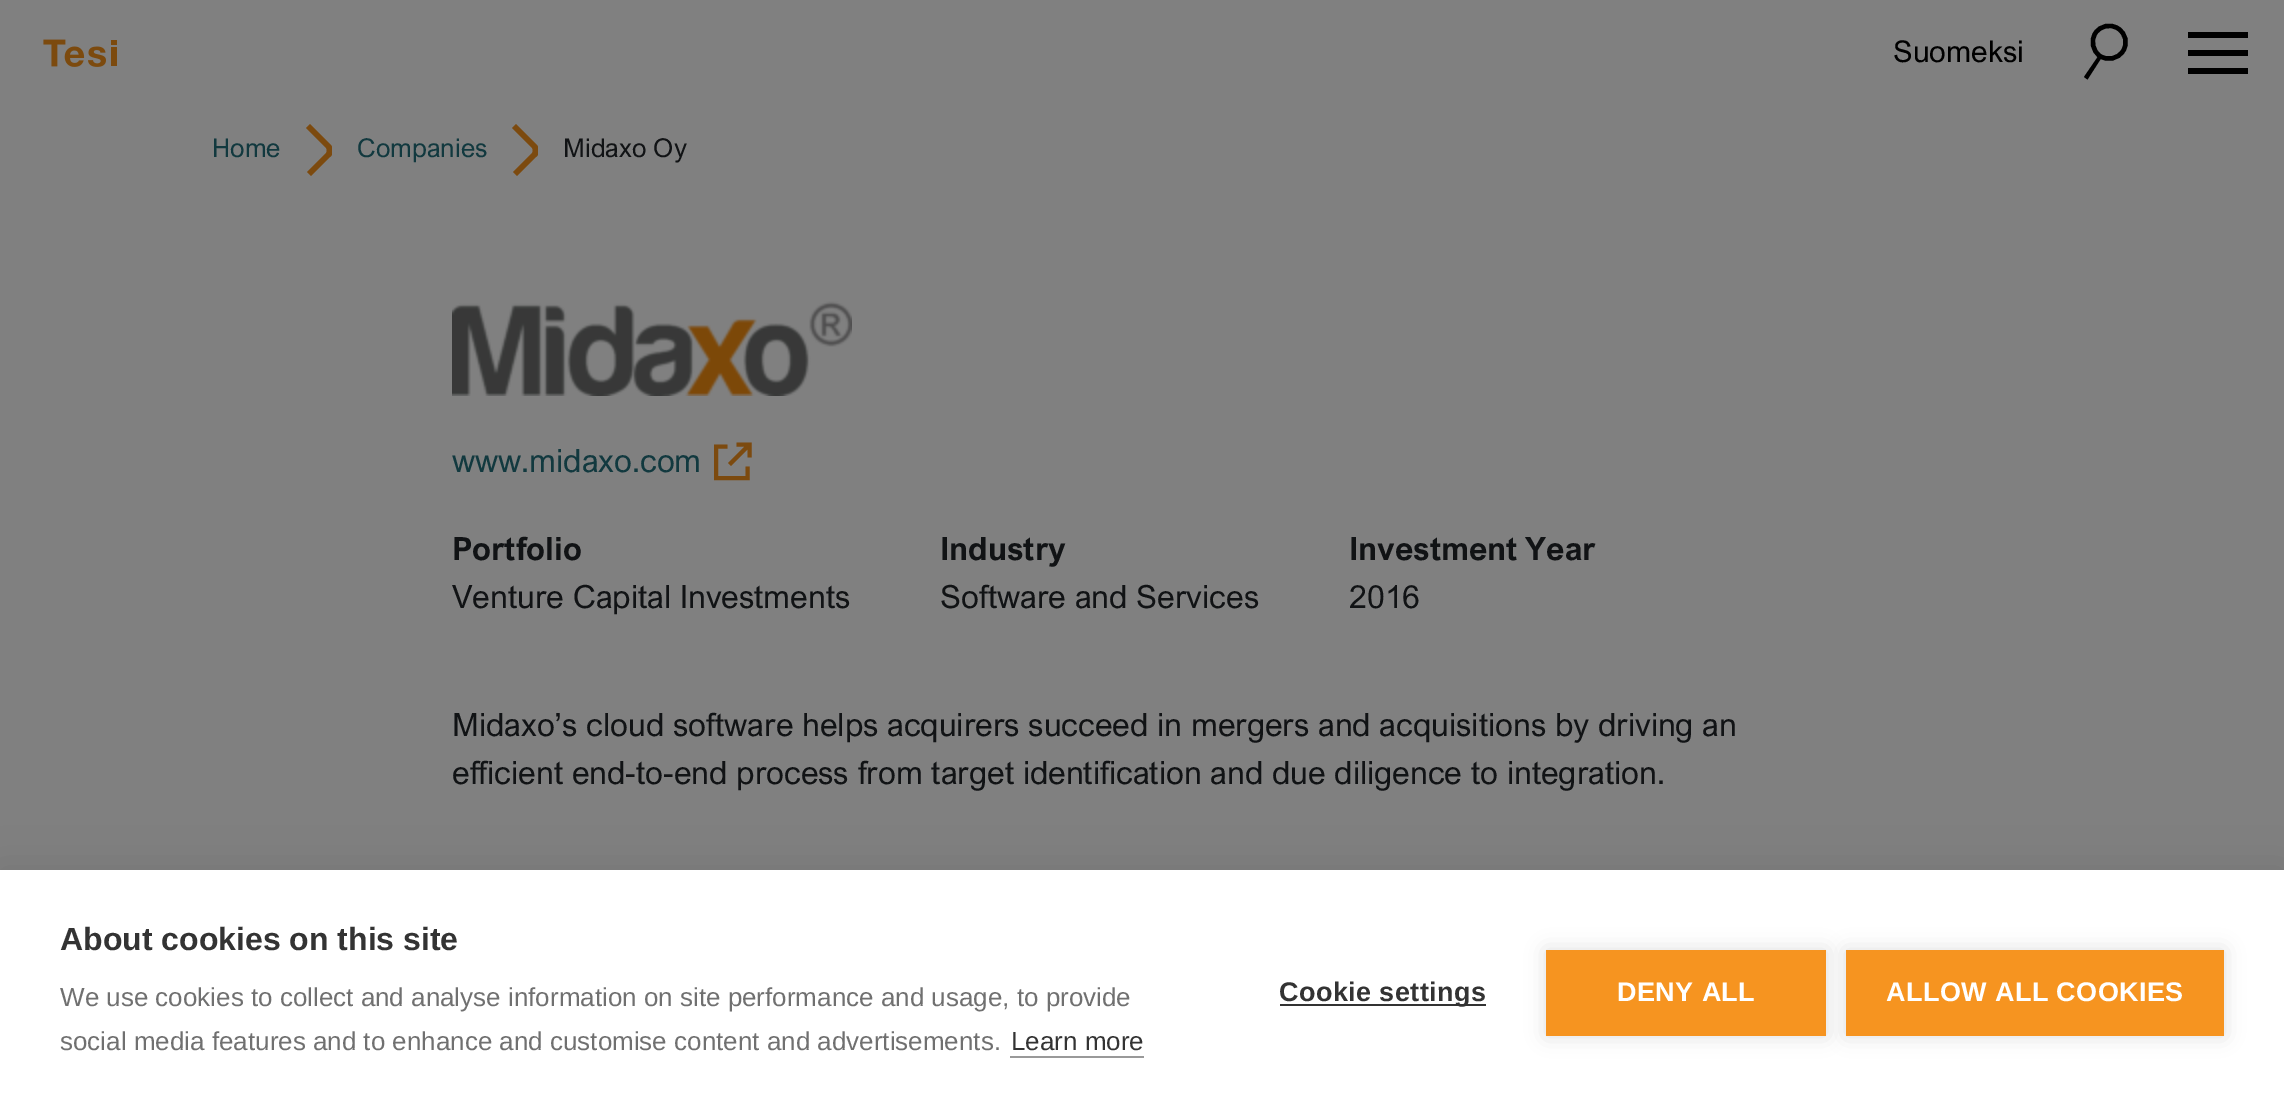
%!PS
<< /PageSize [2284 1114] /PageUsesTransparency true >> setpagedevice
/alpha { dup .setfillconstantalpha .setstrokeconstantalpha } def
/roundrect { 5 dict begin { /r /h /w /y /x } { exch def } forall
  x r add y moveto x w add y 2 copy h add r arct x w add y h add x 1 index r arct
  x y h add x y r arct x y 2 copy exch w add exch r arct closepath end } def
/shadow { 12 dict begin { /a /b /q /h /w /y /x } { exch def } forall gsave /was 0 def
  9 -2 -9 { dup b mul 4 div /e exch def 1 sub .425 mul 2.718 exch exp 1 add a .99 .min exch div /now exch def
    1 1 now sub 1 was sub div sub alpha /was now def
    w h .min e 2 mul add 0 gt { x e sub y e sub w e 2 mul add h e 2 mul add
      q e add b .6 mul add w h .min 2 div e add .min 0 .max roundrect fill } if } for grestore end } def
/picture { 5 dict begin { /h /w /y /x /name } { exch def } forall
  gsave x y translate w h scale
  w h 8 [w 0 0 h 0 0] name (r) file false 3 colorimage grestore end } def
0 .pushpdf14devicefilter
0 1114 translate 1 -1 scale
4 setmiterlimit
0.502 setgray
0 0 2284 1114 rectfill
(img1.rgb) 43 39 74 28 picture
/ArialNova-Regular [30 0 0 -30 0 0] selectfont
0 setgray
1893 62 moveto (Suomeksi) show
4.4 setlinewidth
newpath 2118 28.5 moveto 2126 33.5 2128 43.5 2123 51 curveto 2118 59 2107.5 61 2100 56 curveto 2092.5 51 2090.5 40.5 2095.5 33 curveto 2100.5 25.5 2110.5 23.5 2118 28.5 curveto closepath stroke
newpath 2098 56.5 moveto 2101 58.5 lineto 2087.5 79.5 lineto 2084 77 lineto closepath fill
2188 50 60 6 rectfill
2188 32 60 6 rectfill
2188 68 60 6 rectfill
/ArialNova-Regular [26 0 0 -26 0 0] selectfont
0.071 0.224 0.247 setrgbcolor
212 157 moveto (Home) show
gsave
306 124 26 52 rectclip
0.486 0.29 0.059 setrgbcolor
newpath 326 148 moveto 306 128 lineto 310 124 lineto 330 144 lineto 334 148 334 154 330 157 curveto 311 176 lineto 307 172 lineto 326 153 lineto 327 152 327 149 326 148 curveto closepath eofill
grestore
357 157 moveto (Companies) show
gsave
512 124 26 52 rectclip
0.486 0.29 0.059 setrgbcolor
newpath 532 148 moveto 512 128 lineto 516 124 lineto 536 144 lineto 540 148 540 154 536 157 curveto 517 176 lineto 513 172 lineto 532 153 lineto 533 152 533 149 532 148 curveto closepath eofill
grestore
0.067 0.075 0.082 setrgbcolor
563 157 moveto (Midaxo Oy) show
(img2.rgb) 452 301 400 95 picture
/ArialNova-Regular [32 0 0 -32 0 0] selectfont
0.071 0.224 0.247 setrgbcolor
452 472 moveto (www.midaxo.com) show
0.486 0.29 0.059 setrgbcolor
4 setlinewidth
newpath 747.5 466.5 moveto 747.5 478 lineto 716 478 lineto 716 446.5 lineto 727.5 446.5 lineto 749.5 457.5 moveto 749.5 444.5 lineto 736.5 444.5 lineto 729.5 464.5 moveto 747.5 446.5 lineto stroke
/ArialNova-Bold [32 0 0 -32 0 0] selectfont
0.067 0.075 0.082 setrgbcolor
452 560 moveto (Portfolio) show
/ArialNova-Regular [32 0 0 -32 0 0] selectfont
452 608 moveto (Venture Capital Investments) show
/ArialNova-Bold [32 0 0 -32 0 0] selectfont
940 560 moveto (Industry) show
/ArialNova-Regular [32 0 0 -32 0 0] selectfont
940 608 moveto (Software and Services) show
/ArialNova-Bold [32 0 0 -32 0 0] selectfont
1349 560 moveto (Investment Year) show
/ArialNova-Regular [32 0 0 -32 0 0] selectfont
1349 608 moveto (2016) show
452 736 moveto (Midaxo’s cloud software helps acquirers succeed in mergers and acquisitions by driving an) show
452 784 moveto (efficient end-to-end process from target identification and due diligence to integration.) show
0 setgray
0 870 2284 244 0 20 0.1 shadow
1 setgray
0 870 2284 244 rectfill
/LiberationSans-Bold [32 0 0 -32 0 0] selectfont
0.2 setgray
60 950 moveto (About cookies on this site) show
/LiberationSans-Regular [26 0 0 -26 0 0] selectfont
0.439 setgray
60 1006 moveto (We use cookies to collect and analyse information on site performance and usage, to provide) show
60 1050 moveto (social media features and to enhance and customise content and advertisements.) show
0.2 setgray
1011 1050 moveto (Learn more) show
0.6 setgray
1010 1056 134 2 rectfill
0.2 setgray
1280 1004 206 2 rectfill
/LiberationSans-Bold [27 0 0 -27 0 0] selectfont
1279 1001 moveto 0.4 0 (Cookie settings) ashow
0 setgray
1546 950 280 86 0 10 0.12 shadow
0.965 0.58 0.125 setrgbcolor
1546 950 280 86 rectfill
1 setgray
1617 1001 moveto 0.4 0 (DENY ALL) ashow
0 setgray
1846 950 378 86 0 10 0.12 shadow
0.965 0.58 0.125 setrgbcolor
1846 950 378 86 rectfill
1 setgray
1886 1001 moveto 0.4 0 (ALLOW ALL COOKIES) ashow
.poppdf14devicefilter showpage
